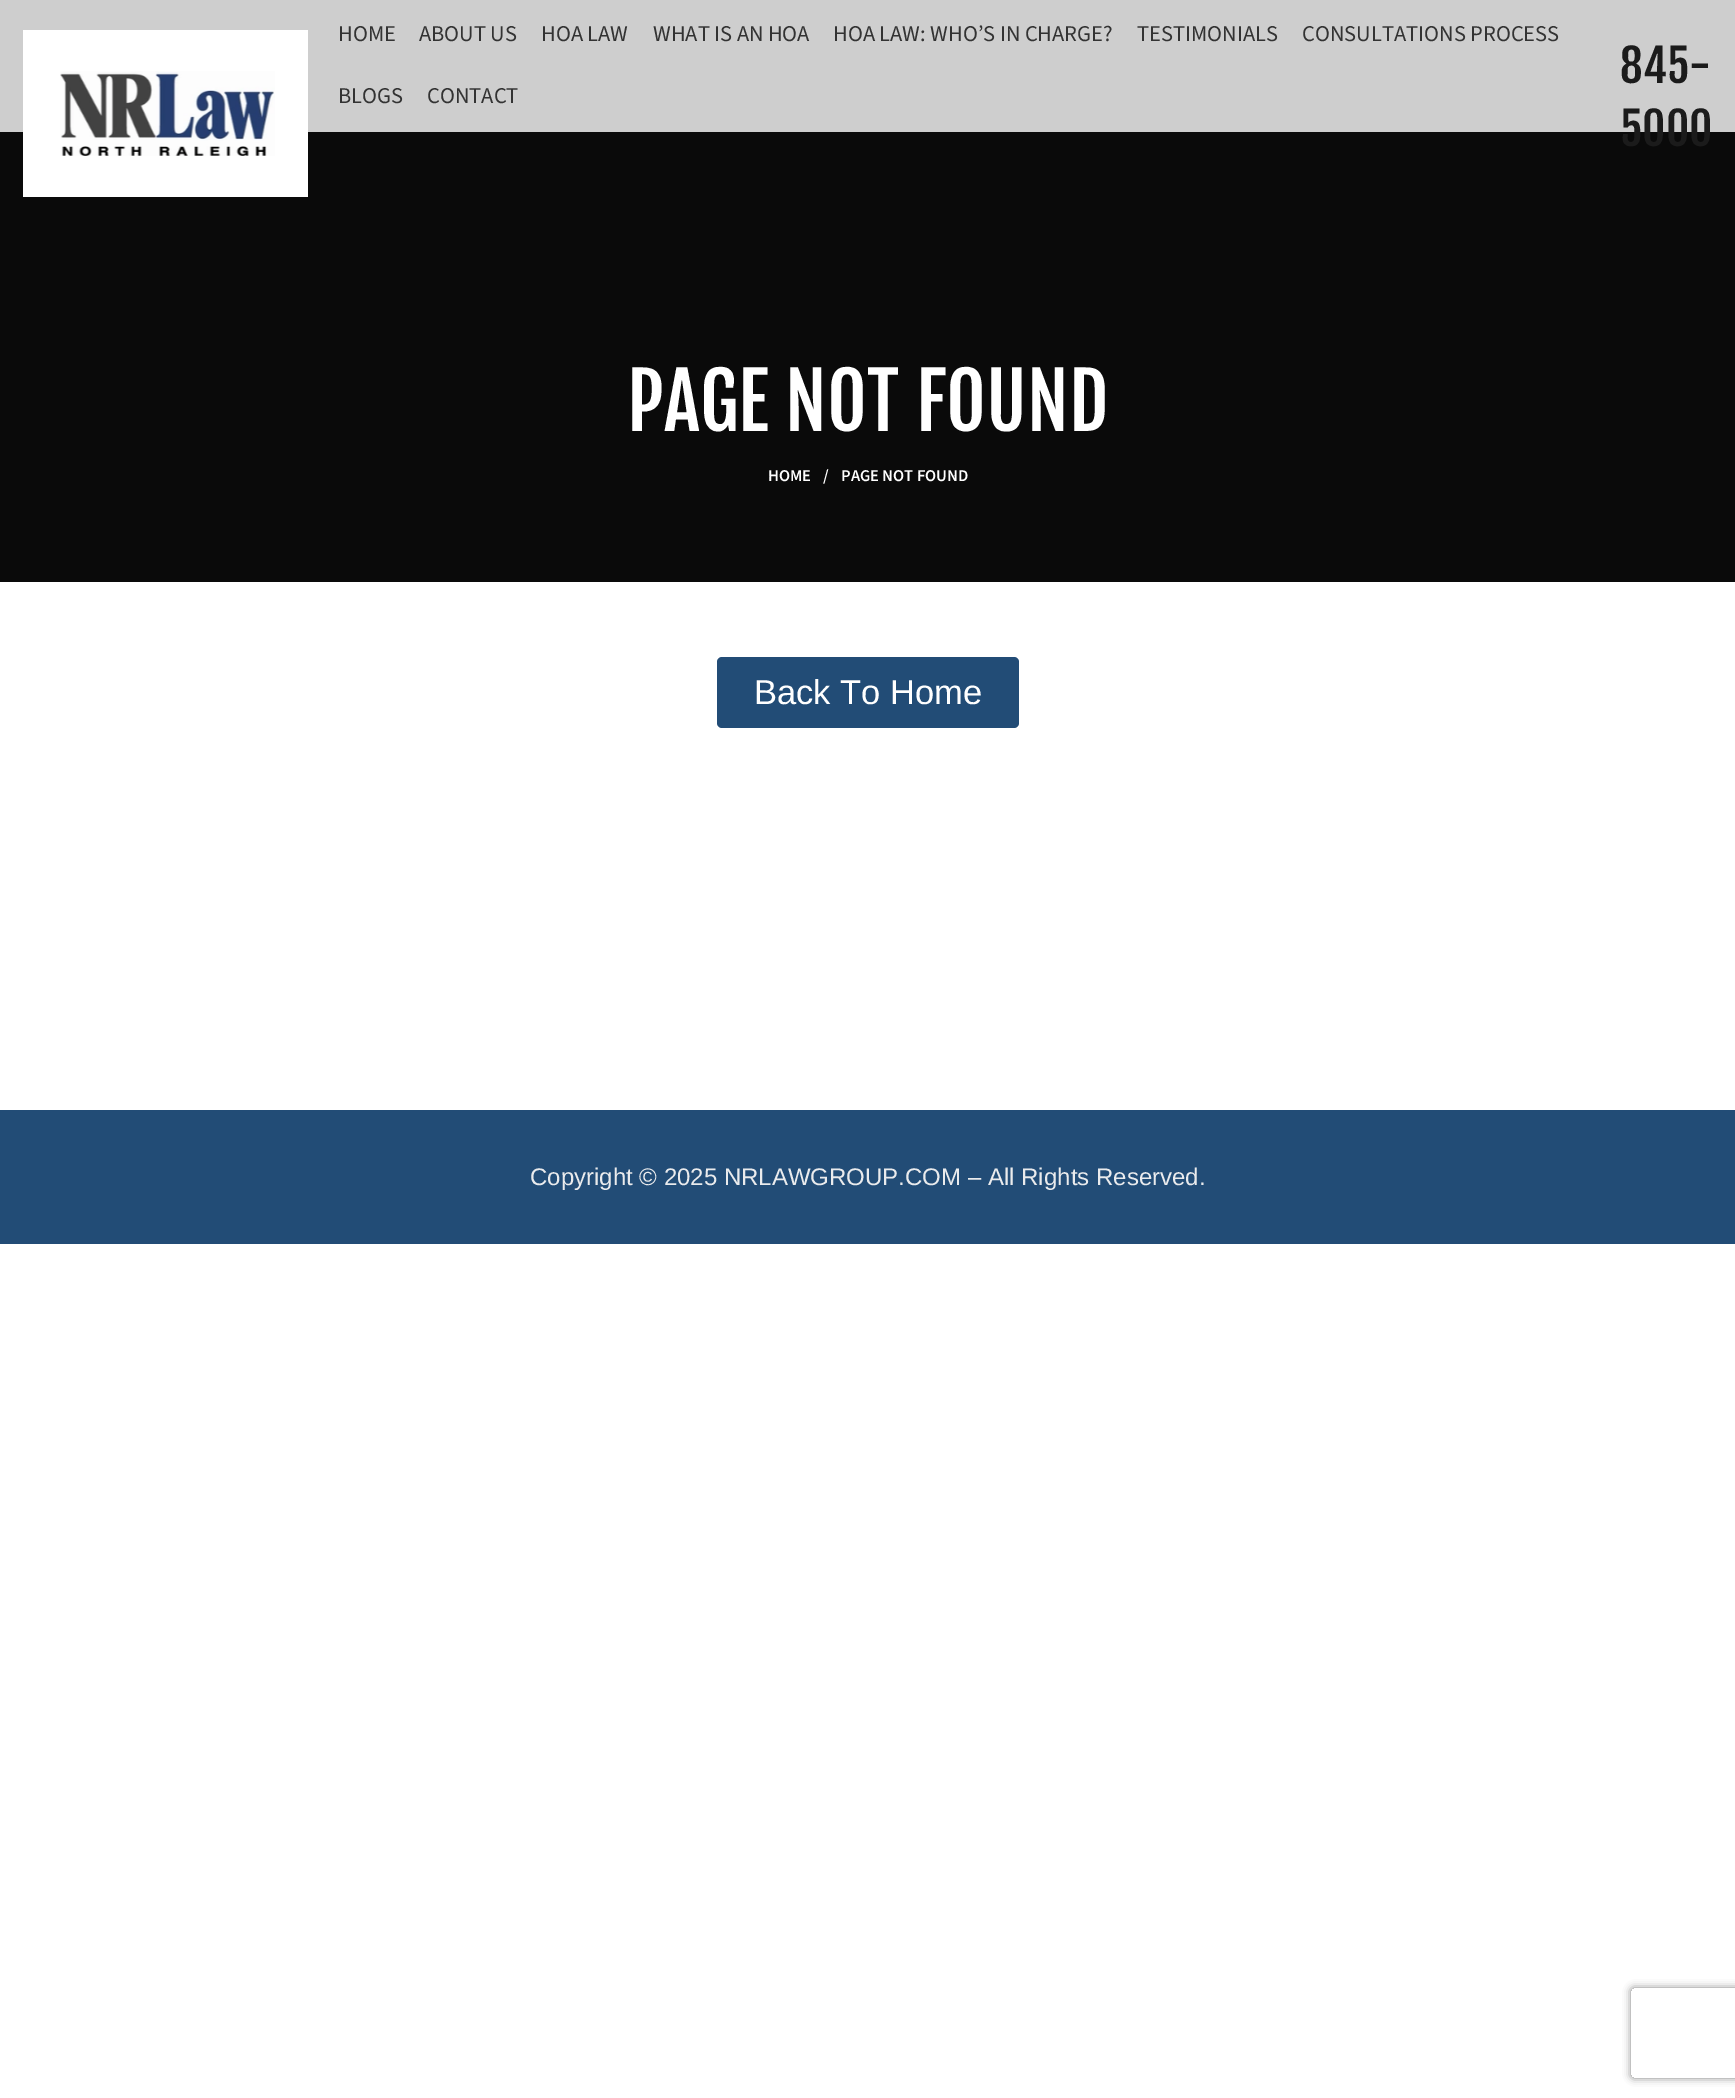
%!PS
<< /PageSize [1735 2098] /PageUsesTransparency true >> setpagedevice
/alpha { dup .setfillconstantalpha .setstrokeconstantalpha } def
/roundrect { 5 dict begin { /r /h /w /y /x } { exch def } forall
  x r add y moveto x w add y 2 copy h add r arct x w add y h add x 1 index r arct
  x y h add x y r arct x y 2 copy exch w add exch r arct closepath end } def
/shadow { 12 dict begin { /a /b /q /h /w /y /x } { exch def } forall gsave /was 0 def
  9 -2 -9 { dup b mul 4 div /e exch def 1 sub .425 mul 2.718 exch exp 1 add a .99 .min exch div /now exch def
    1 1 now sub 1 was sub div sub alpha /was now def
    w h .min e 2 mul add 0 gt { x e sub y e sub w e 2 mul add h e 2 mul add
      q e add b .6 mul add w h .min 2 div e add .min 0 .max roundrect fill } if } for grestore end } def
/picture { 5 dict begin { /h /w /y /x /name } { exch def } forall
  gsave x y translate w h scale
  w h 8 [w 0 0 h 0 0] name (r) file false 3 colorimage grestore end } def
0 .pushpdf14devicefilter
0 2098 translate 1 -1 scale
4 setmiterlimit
1 setgray
0 0 1735 2098 rectfill
0.808 setgray
0 0 1735 132 rectfill
0.039 setgray
0 132 1735 450 rectfill
1 setgray
23 30 285 167 rectfill
(img1.rgb) 60 71 215 85 picture
/SourceSans3-Regular [22.5 0 0 -22.5 0 0] selectfont
0.2 setgray
338 41 moveto (HOME) show
419 41 moveto (ABOUT US) show
541 41 moveto (HOA LAW) show
653 41 moveto (WHAT IS AN HOA) show
833 41 moveto (HOA LAW: WHO’S IN CHARGE?) show
1137 41 moveto (TESTIMONIALS) show
1302 41 moveto (CONSULTATIONS PROCESS) show
338 103 moveto (BLOGS) show
427 103 moveto (CONTACT) show
/FjallaOne-Regular [45 0 0 -45 0 0] selectfont
0.106 setgray
1620 83 moveto (845-) show
1620 146 moveto (5000) show
/FjallaOne-Regular [76.5 0 0 -76.5 0 0] selectfont
1 setgray
627 431 moveto (PAGE NOT FOUND) show
/SourceSans3-SemiBold [16.5 0 0 -16.5 0 0] selectfont
768 481 moveto (HOME) show
823 481 moveto (/) show
841 481 moveto (PAGE NOT FOUND) show
0.133 0.298 0.463 setrgbcolor
717 657 302 71 5 roundrect fill
/LiberationSans-Regular [34.5 0 0 -34.5 0 0] selectfont
1 setgray
754 704 moveto (Back To Home) show
0.133 0.298 0.463 setrgbcolor
0 1110 1735 134 rectfill
/LiberationSans-Regular [24 0 0 -24 0 0] selectfont
0.918 0.922 0.929 setrgbcolor
530 1185 moveto (Copyright © 2025 NRLAWGROUP.COM – All Rights Reserved.) show
gsave
newpath 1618 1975 moveto 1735 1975 lineto 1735 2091 lineto 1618 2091 lineto closepath 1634 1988 moveto 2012 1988 lineto 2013.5 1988 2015 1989.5 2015 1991 curveto 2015 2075 lineto 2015 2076.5 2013.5 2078 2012 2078 curveto 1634 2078 lineto 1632.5 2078 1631 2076.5 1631 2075 curveto 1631 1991 lineto 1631 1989.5 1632.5 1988 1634 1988 curveto closepath eoclip newpath
0.502 setgray
1631 1988 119 90 3 4 1 shadow
grestore
.poppdf14devicefilter showpage
